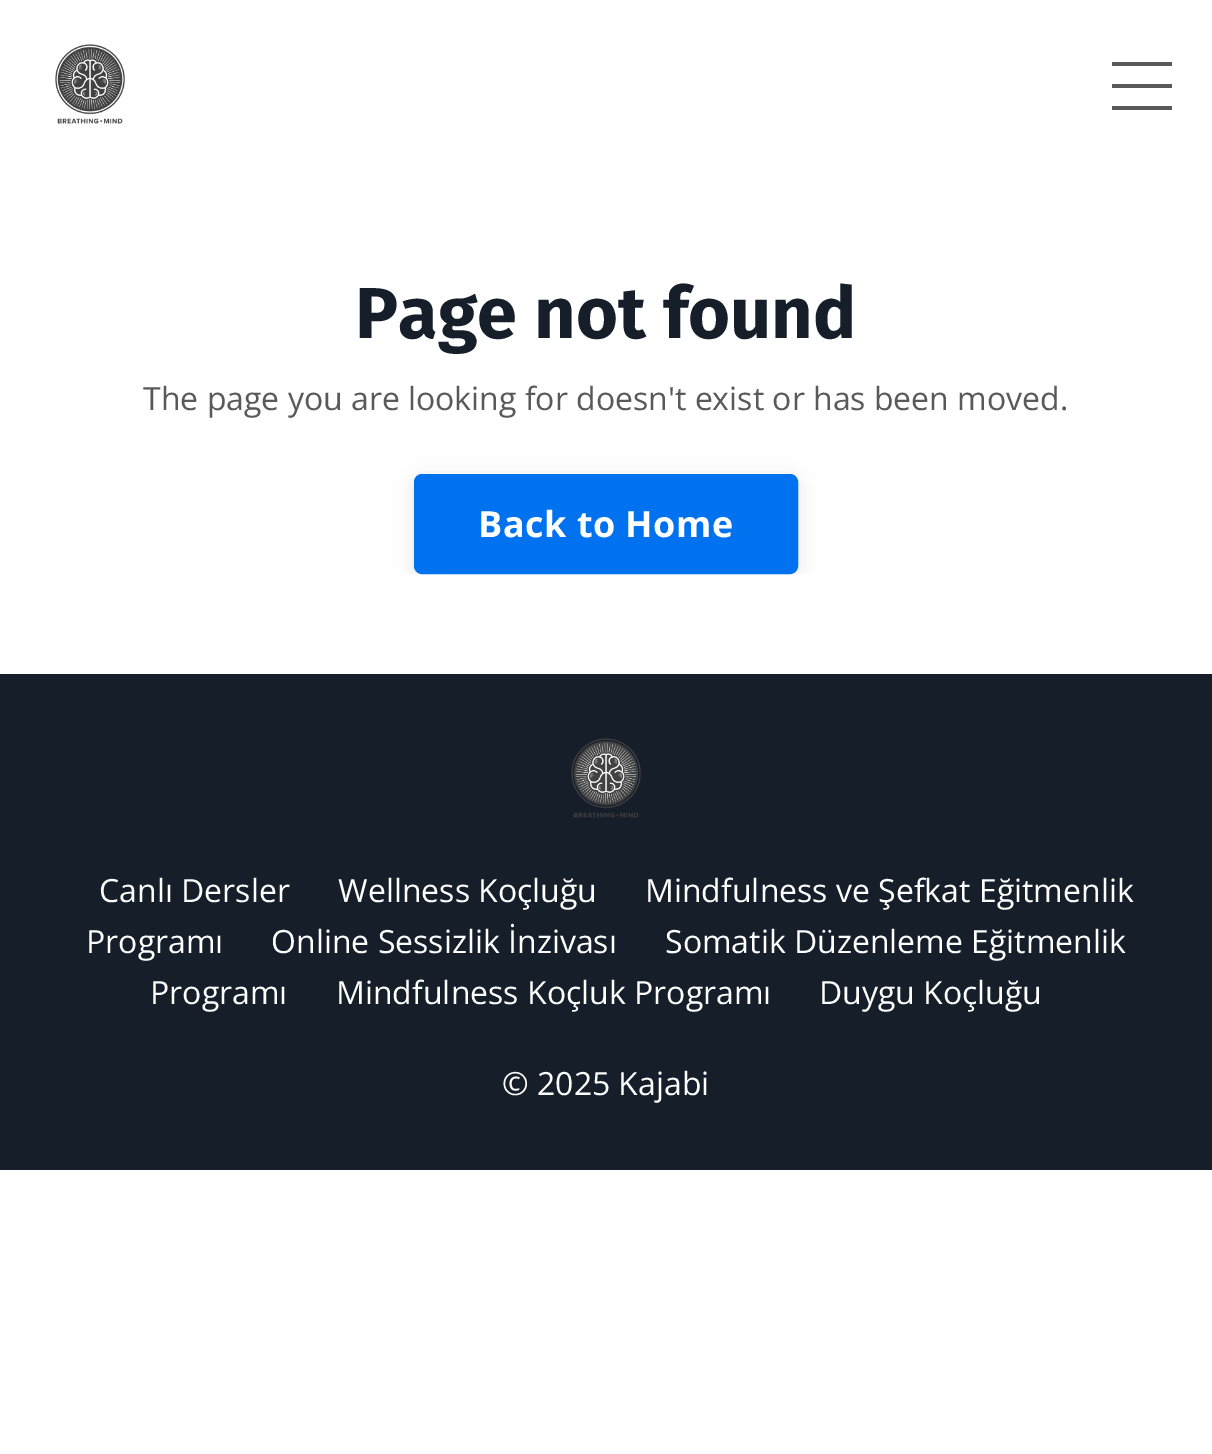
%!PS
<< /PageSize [1212 1454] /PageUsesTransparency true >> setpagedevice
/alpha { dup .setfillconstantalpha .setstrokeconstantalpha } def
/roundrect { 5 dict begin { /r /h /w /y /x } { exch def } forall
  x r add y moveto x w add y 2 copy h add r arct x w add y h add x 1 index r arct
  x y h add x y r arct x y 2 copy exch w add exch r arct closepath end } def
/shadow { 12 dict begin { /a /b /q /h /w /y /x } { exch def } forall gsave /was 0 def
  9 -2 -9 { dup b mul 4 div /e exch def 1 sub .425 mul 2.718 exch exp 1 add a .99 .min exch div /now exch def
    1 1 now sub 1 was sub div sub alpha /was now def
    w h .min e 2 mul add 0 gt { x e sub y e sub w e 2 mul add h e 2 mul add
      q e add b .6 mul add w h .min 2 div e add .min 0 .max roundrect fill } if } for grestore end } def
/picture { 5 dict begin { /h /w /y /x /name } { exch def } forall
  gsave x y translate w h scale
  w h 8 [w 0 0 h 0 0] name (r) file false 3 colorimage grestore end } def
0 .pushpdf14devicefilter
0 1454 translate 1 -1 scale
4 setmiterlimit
1 setgray
0 0 1212 1454 rectfill
(img1.rgb) 55 44 70 80 picture
0.349 setgray
1112 62 60 4 rectfill
1112 84 60 4 rectfill
1112 106 60 4 rectfill
/FiraSans-Bold [72 0 0 -72 0 0] selectfont
0.086 0.118 0.165 setrgbcolor
355 338 moveto (Page not found) show
/OpenSans-Regular [32 0 0 -32 0 0] selectfont
0.349 setgray
143 410 moveto (The page you are looking for doesn't exist or has been moved.) show
gsave
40 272 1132 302 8 roundrect clip newpath
0 setgray
414 478 384 100 8 10 0.1 shadow
grestore
0 0.447 0.937 setrgbcolor
416 476 380 96 6 roundrect gsave fill grestore
4 setlinewidth
stroke
/OpenSans-Bold [36 0 0 -36 0 0] selectfont
1 setgray
478 537 moveto 0.5 0 (Back to Home) ashow
0.086 0.118 0.165 setrgbcolor
0 674 1212 496 rectfill
(img2.rgb) 571 738 70 80 picture
/OpenSans-Regular [32 0 0 -32 0 0] selectfont
1 setgray
99 902 moveto (Canlı Dersler) show
338 902 moveto (Wellness Koçluğu) show
645 902 moveto (Mindfulness ve Şefkat Eğitmenlik) show
86 953 moveto (Programı) show
271 953 moveto (Online Sessizlik İnzivası) show
665 953 moveto (Somatik Düzenleme Eğitmenlik) show
150 1004 moveto (Programı) show
336 1004 moveto (Mindfulness Koçluk Programı) show
819 1004 moveto (Duygu Koçluğu) show
502 1095 moveto (© 2025 Kajabi) show
.poppdf14devicefilter showpage
